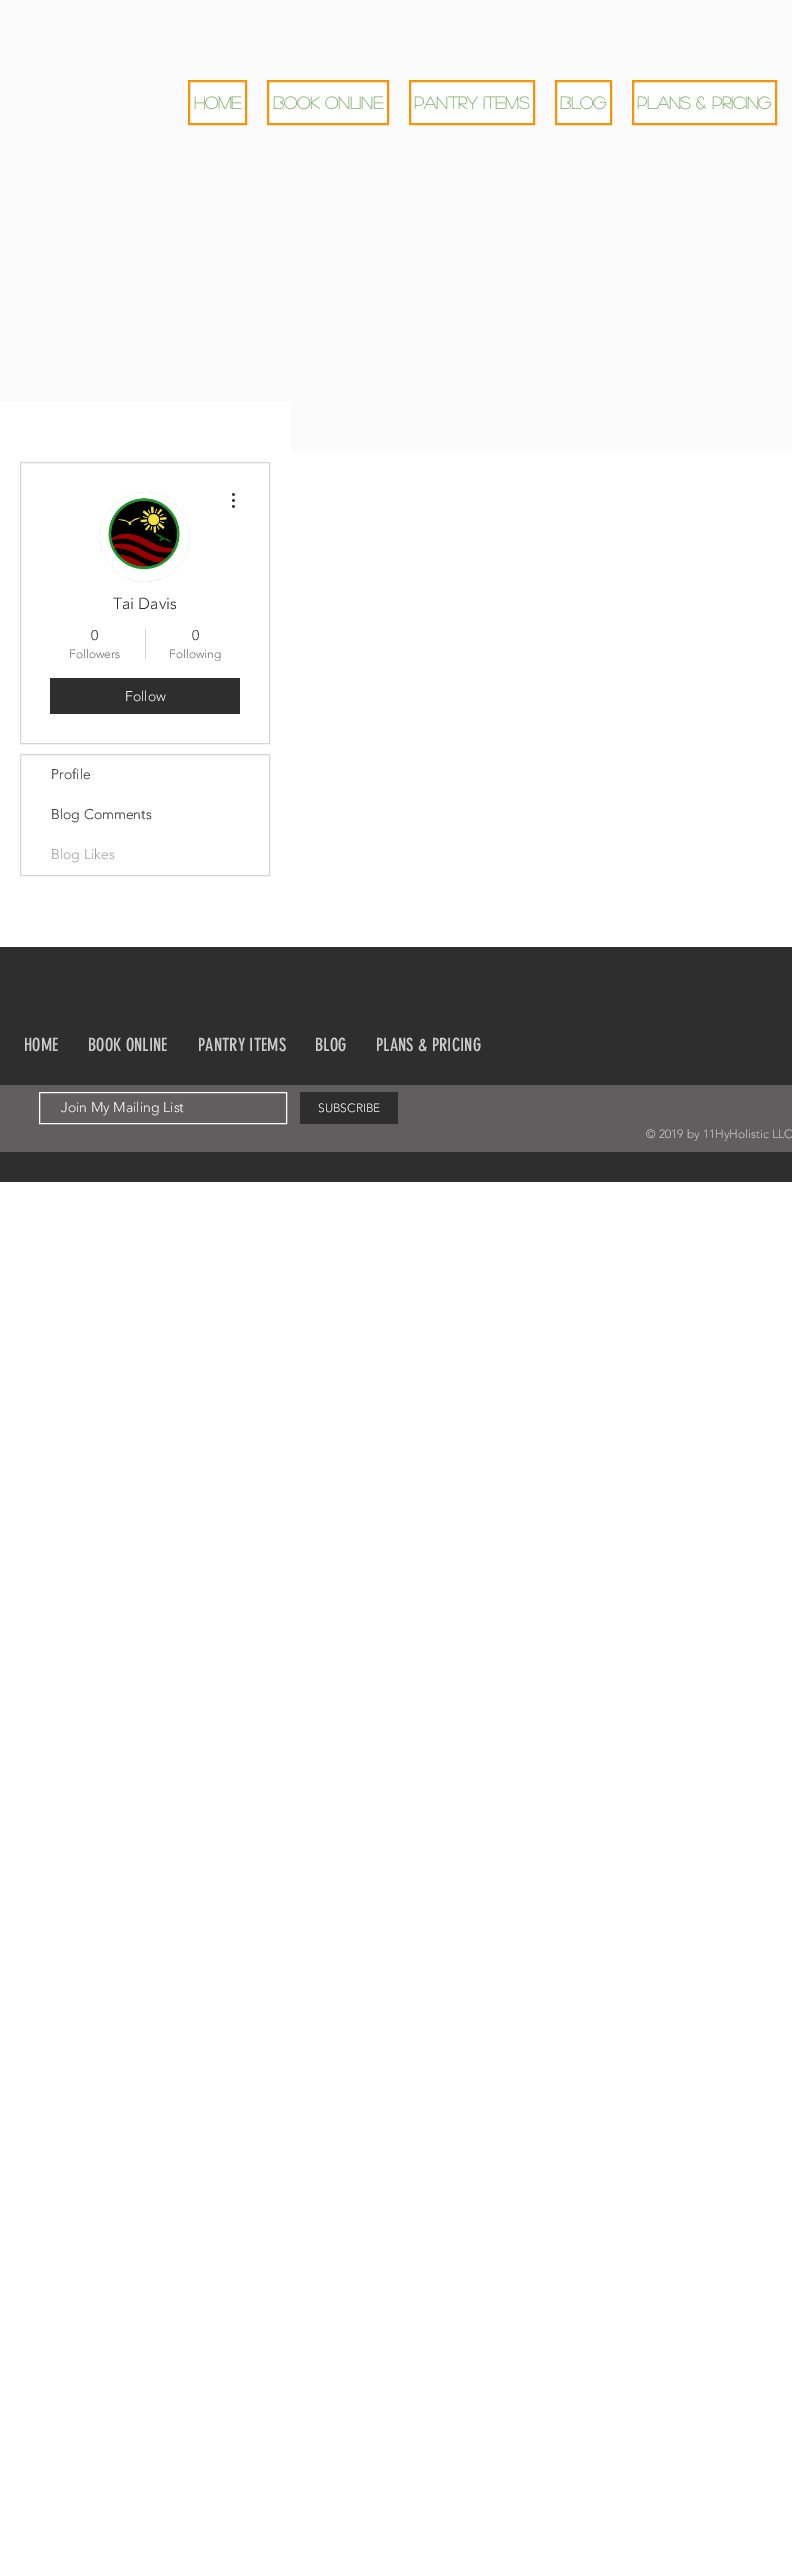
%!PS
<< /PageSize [792 2555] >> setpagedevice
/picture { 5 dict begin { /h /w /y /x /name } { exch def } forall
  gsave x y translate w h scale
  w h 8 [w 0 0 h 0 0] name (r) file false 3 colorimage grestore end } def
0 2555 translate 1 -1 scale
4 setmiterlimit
1 setgray
0 0 792 2555 rectfill
0.98 setgray
0 0 792 451 rectfill
1 setgray
newpath 189 81 moveto 246 81 lineto 246 124 lineto 189 124 lineto closepath gsave fill grestore
0.949 0.584 0.039 setrgbcolor
2 setlinewidth
stroke
/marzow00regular-Bold [17 0 0 -17 0 0] selectfont
0.478 0.671 0.38 setrgbcolor
194 109 moveto (HOME) show
1 setgray
newpath 268 81 moveto 388 81 lineto 388 124 lineto 268 124 lineto closepath gsave fill grestore
0.949 0.584 0.039 setrgbcolor
stroke
0.478 0.671 0.38 setrgbcolor
273 109 moveto (BOOK ONLINE) show
1 setgray
newpath 410 81 moveto 534 81 lineto 534 124 lineto 410 124 lineto closepath gsave fill grestore
0.949 0.584 0.039 setrgbcolor
stroke
0.478 0.671 0.38 setrgbcolor
414 109 moveto (PANTRY ITEMS) show
1 setgray
newpath 556 81 moveto 611 81 lineto 611 124 lineto 556 124 lineto closepath gsave fill grestore
0.949 0.584 0.039 setrgbcolor
stroke
0.478 0.671 0.38 setrgbcolor
560 109 moveto (BLOG) show
1 setgray
newpath 633 81 moveto 776 81 lineto 776 124 lineto 633 124 lineto closepath gsave fill grestore
0.949 0.584 0.039 setrgbcolor
stroke
0.478 0.671 0.38 setrgbcolor
637 109 moveto (PLANS & PRICING) show
1 setgray
0 402 291 49 rectfill
0.835 setgray
1 setlinewidth
20.5 462.5 249 281 rectstroke
0.847 setgray
newpath 145 537 45 0 360 arc closepath fill
(img1.rgb) 100 492 90 90 picture
(img2.rgb) 232 493 3 15 picture
/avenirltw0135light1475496-Light [16 0 0 -16 0 0] selectfont
0.184 0.18 0.18 setrgbcolor
113 609 moveto (Tai Davis) show
/avenirltw0135light1475496-Light [14 0 0 -14 0 0] selectfont
91 640 moveto (0) show
/avenirltw0135light1475496-Light [12 0 0 -12 0 0] selectfont
0.427 setgray
69 658 moveto (Followers) show
0.835 setgray
145 628 1 32 rectfill
/avenirltw0135light1475496-Light [14 0 0 -14 0 0] selectfont
0.184 0.18 0.18 setrgbcolor
192 640 moveto (0) show
/avenirltw0135light1475496-Light [12 0 0 -12 0 0] selectfont
0.427 setgray
169 658 moveto (Following) show
0.184 0.18 0.18 setrgbcolor
50 678 190 36 rectfill
/avenirltw0135light1475496-Light [14 0 0 -14 0 0] selectfont
1 setgray
125 701 moveto (Follow) show
0.835 setgray
20.5 754.5 249 121 rectstroke
0.184 0.18 0.18 setrgbcolor
51 779 moveto (Profile) show
51 819 moveto (Blog Comments) show
0.627 0.627 0.624 setrgbcolor
51 859 moveto (Blog Likes) show
0.184 0.18 0.18 setrgbcolor
0 947 792 235 rectfill
/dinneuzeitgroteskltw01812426-Regular [18 0 0 -18 0 0] selectfont
0.8 setgray
24 1051 moveto (HOME) show
88 1051 moveto (BOOK ONLINE) show
198 1051 moveto (PANTRY ITEMS) show
315 1051 moveto (BLOG) show
376 1051 moveto (PLANS & PRICING) show
0.376 0.369 0.369 setrgbcolor
0 1085 792 67 rectfill
1 setgray
39.5 1092.5 247 31 rectstroke
/avenirltw0135light1475496-Light [14 0 0 -14 0 0] selectfont
61 1112 moveto (Join My Mailing List) show
0.184 0.18 0.18 setrgbcolor
300 1092 98 32 rectfill
/avenirltw0135light1475496-Light [12 0 0 -12 0 0] selectfont
1 setgray
318 1112 moveto (SUBSCRIBE) show
0.8 setgray
646 1138 moveto (© 2019 by 11HyHolistic LLC) show
showpage
